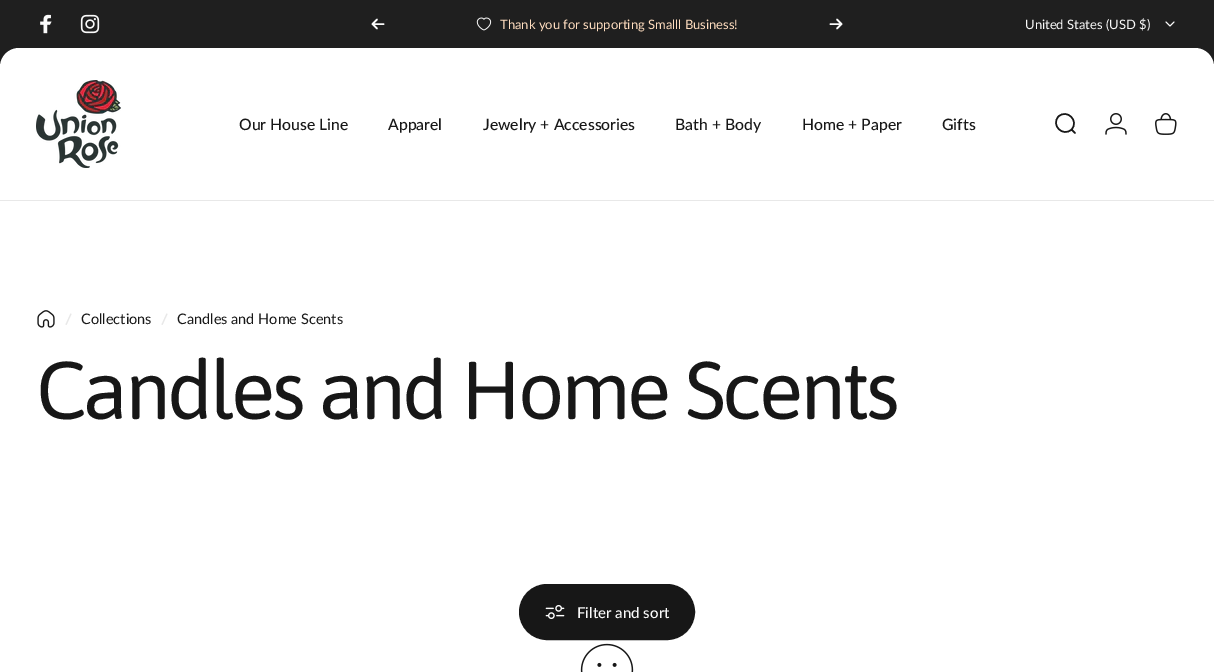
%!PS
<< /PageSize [1214 672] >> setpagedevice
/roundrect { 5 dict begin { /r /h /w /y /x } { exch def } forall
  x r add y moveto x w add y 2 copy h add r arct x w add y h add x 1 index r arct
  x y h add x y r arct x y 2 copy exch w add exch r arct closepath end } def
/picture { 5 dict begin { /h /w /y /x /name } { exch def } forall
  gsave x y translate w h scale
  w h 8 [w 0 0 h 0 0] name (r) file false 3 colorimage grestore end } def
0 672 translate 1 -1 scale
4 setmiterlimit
1 setgray
0 0 1214 672 rectfill
0.122 setgray
0 0 1214 19 rectfill
newpath 19 0 moveto 1195 0 lineto 1205.5 0 1214 8.5 1214 19 curveto 1214 67 lineto 0 67 lineto 0 19 lineto 0 8.5 8.5 0 19 0 curveto closepath fill
(img1.rgb) 40 14 12 20 picture
(img2.rgb) 80 14 20 20 picture
0.98 setgray
1.6 setlinewidth
1 setlinecap
1 setlinejoin
newpath 377 19.5 moveto 372.5 24 lineto 372.5 24 moveto 377 28.5 lineto 372.5 24 moveto 383.5 24 lineto stroke
(img3.rgb) 476 17 16 14 picture
/Lato-Regular [13 0 0 -13 0 0] selectfont
1 0.867 0.749 setrgbcolor
500 29 moveto (Thank you for supporting Smalll Business!) show
0.98 setgray
newpath 830.5 24 moveto 841.5 24 lineto 841.5 24 moveto 837 19.5 lineto 841.5 24 moveto 837 28.5 lineto stroke
1025 29 moveto (United States \(USD $\)) show
1 setlinewidth
newpath 1166 22 moveto 1170 26 lineto 1174 22 lineto stroke
1 setgray
newpath 19 48 moveto 1195 48 lineto 1205.5 48 1214 56.5 1214 67 curveto 1214 200 lineto 0 200 lineto 0 67 lineto 0 56.5 8.5 48 19 48 curveto closepath fill
(img4.rgb) 36 80 85 88 picture
/Lato-Medium [15.75 0 0 -15.75 0 0] selectfont
0.09 setgray
239 130 moveto (Our House Line) show
388 130 moveto (Apparel) show
483 130 moveto (Jewelry + Accessories) show
675 130 moveto (Bath + Body) show
802 130 moveto (Home + Paper) show
942 130 moveto (Gifts) show
1.5 setlinewidth
0 setlinejoin
newpath 1075 133 moveto 1071.5 129.5 lineto 1071.5 129.5 moveto 1079.5 121 1067 108.5 1058.5 116.5 curveto 1050.5 125 1063 137.5 1071.5 129.5 curveto closepath stroke
(img5.rgb) 1105 113 22 22 picture
(img6.rgb) 1155 113 22 22 picture
0.91 setgray
0 200 1214 1 rectfill
(img7.rgb) 37 310 18 18 picture
newpath 70.5 313.5 moveto 71.5 314 lineto 66.5 325 lineto 65.5 324.5 lineto closepath fill
/Lato-Regular [14.5 0 0 -14.5 0 0] selectfont
0.09 setgray
81 324 moveto (Collections) show
0.91 setgray
newpath 166.5 313.5 moveto 167.5 314 lineto 162.5 325 lineto 161.5 324.5 lineto closepath fill
0.09 setgray
177 324 moveto (Candles and Home Scents) show
/Asap-Regular [81.75 0 0 -81.75 0 0] selectfont
36 419 moveto -3.25 0 (Candles and Home Scents) ashow
520 585 174 54 27 roundrect gsave fill grestore
2 setlinewidth
0 setlinecap
stroke
(img8.rgb) 545 605 20 14 picture
/Lato-Medium [15 0 0 -15 0 0] selectfont
0.98 setgray
577 618 moveto (Filter and sort) show
(img9.rgb) 580 643 54 29 picture
showpage
